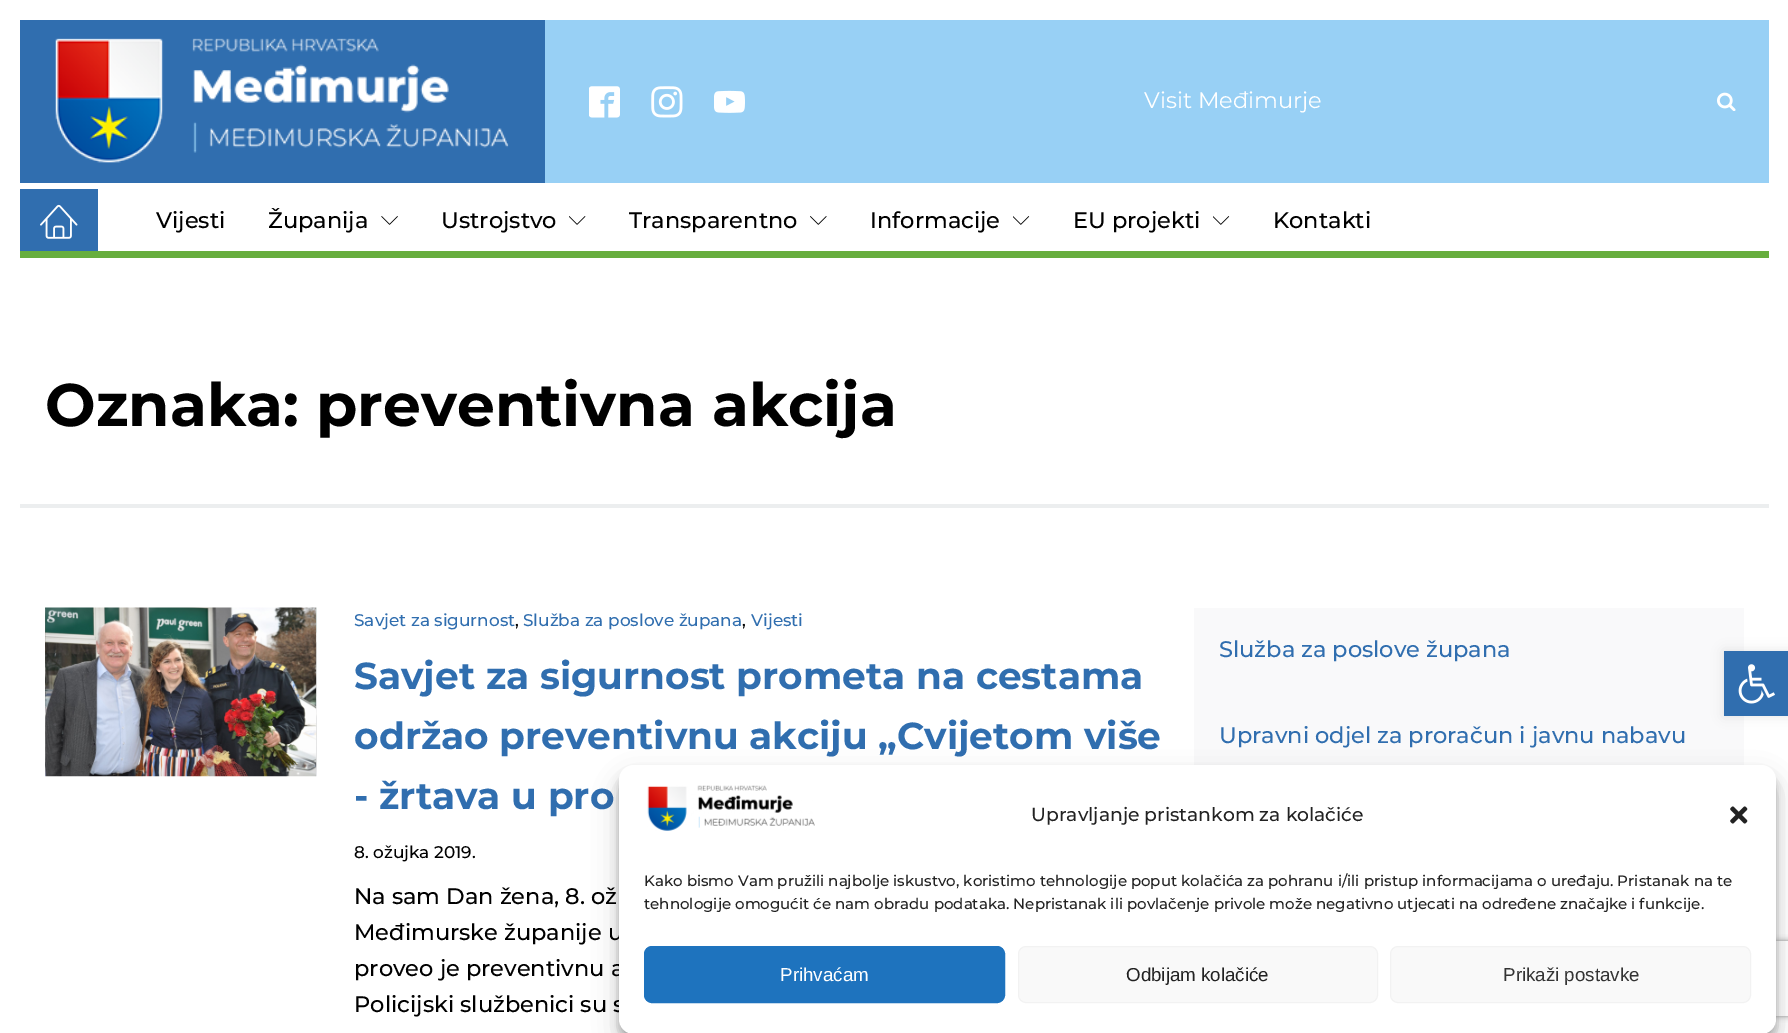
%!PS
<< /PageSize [1788 1033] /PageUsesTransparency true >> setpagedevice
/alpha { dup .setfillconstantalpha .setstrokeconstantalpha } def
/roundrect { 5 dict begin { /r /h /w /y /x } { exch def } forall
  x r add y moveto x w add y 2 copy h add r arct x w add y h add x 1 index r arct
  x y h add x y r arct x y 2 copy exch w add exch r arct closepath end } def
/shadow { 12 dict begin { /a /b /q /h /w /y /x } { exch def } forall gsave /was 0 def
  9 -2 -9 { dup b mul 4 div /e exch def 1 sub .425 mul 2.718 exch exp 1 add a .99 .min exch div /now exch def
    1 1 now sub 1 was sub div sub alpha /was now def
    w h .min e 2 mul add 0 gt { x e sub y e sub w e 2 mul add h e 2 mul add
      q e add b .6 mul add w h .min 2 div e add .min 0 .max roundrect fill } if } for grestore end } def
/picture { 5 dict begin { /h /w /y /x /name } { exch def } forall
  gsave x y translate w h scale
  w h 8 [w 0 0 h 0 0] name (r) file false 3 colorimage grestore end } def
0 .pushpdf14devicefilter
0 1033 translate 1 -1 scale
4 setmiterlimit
1 setgray
0 0 1788 1033 rectfill
0.188 0.431 0.686 setrgbcolor
20 20 525 163 rectfill
(img1.rgb) 55 38 454 125 picture
0.596 0.816 0.961 setrgbcolor
545 20 1224 163 rectfill
(img2.rgb) 589 86 31 32 picture
(img3.rgb) 651 86 32 32 picture
(img4.rgb) 714 90 31 23 picture
/Montserrat-Regular [22.5 0 0 -22.5 0 0] selectfont
1 setgray
1144 108 moveto (Visit Međimurje) show
(img5.rgb) 1717 92 19 19 picture
0.404 0.682 0.243 setrgbcolor
20 251 1749 7 rectfill
0.188 0.431 0.686 setrgbcolor
20 189 78 62 rectfill
(img6.rgb) 40 204 38 35 picture
/Montserrat-Medium [22.5 0 0 -22.5 0 0] selectfont
0 setgray
156 228 moveto (Vijesti) show
268 228 moveto (Županija) show
(img7.rgb) 381 216 17 9 picture
441 228 moveto (Ustrojstvo) show
(img8.rgb) 569 216 17 9 picture
629 228 moveto (Transparentno) show
(img9.rgb) 810 216 17 9 picture
870 228 moveto (Informacije) show
(img10.rgb) 1013 216 17 9 picture
1073 228 moveto (EU projekti) show
(img10.rgb) 1213 216 17 9 picture
1273 228 moveto (Kontakti) show
0.925 0.933 0.937 setrgbcolor
20 504 1749 4 rectfill
/Montserrat-Bold [60 0 0 -60 0 0] selectfont
0 setgray
45 426 moveto (Oznaka: preventivna akcija) show
(img11.rgb) 45 607 272 170 picture
/Montserrat-Medium [16.9 0 0 -16.9 0 0] selectfont
0.188 0.431 0.686 setrgbcolor
354 626 moveto (Savjet za sigurnost) show
0 setgray
515 626 moveto (,) show
0.188 0.431 0.686 setrgbcolor
523 626 moveto (Služba za poslove župana) show
0 setgray
742 626 moveto (,) show
0.188 0.431 0.686 setrgbcolor
751 626 moveto (Vijesti) show
/Montserrat-Bold [37.5 0 0 -37.5 0 0] selectfont
354 689 moveto (Savjet za sigurnost prometa na cestama) show
354 749 moveto (održao preventivnu akciju „Cvijetom više) show
354 809 moveto (- žrtava u pro) show
/Montserrat-Medium [16.9 0 0 -16.9 0 0] selectfont
0 setgray
354 858 moveto (8. ožujka 2019.) show
/Montserrat-Medium [22.5 0 0 -22.5 0 0] selectfont
354 904 moveto (Na sam Dan žena, 8. ož) show
354 940 moveto (Međimurske županije u) show
354 976 moveto (proveo je preventivnu a) show
354 1012 moveto (Policijski službenici su s) show
0.976 0.976 0.98 setrgbcolor
1194 608 550 157 rectfill
0.188 0.431 0.686 setrgbcolor
1219 657 moveto (Služba za poslove župana) show
1219 743 moveto (Upravni odjel za proračun i javnu nabavu) show
0 setgray
1724 651 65 65 0 6 0.1 shadow
0.188 0.431 0.686 setrgbcolor
1724 651 64 65 rectfill
(img12.rgb) 1738 664 37 40 picture
0 setgray
619 773 1157 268 15 4 0.23 shadow
619 778 1157 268 15 12.5 0.19 shadow
gsave
newpath 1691 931 moveto 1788 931 lineto 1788 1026 lineto 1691 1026 lineto closepath 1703.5 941 moveto 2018.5 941 lineto 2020 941 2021 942 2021 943.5 curveto 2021 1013.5 lineto 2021 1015 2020 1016 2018.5 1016 curveto 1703.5 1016 lineto 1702 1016 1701 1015 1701 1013.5 curveto 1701 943.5 lineto 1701 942 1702 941 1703.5 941 curveto closepath eoclip newpath
0.502 setgray
1701 941 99 75 2.5 3 1 shadow
grestore
1 setgray
619 765 1157 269 15 roundrect fill
(img13.rgb) 647 785 168 46 picture
/Montserrat-Medium [18.75 0 0 -18.75 0 0] selectfont
0.133 setgray
1031 821 moveto (Upravljanje pristankom za kolačiće) show
(img14.rgb) 1730 806 18 18 picture
/Montserrat-Medium [15 0 0 -15 0 0] selectfont
644 886 moveto (Kako bismo Vam pružili najbolje iskustvo, koristimo tehnologije poput kolačića za pohranu i/ili pristup informacijama o uređaju. Pristanak na te) show
644 909 moveto (tehnologije omogućit će nam obradu podataka. Nepristanak ili povlačenje privole može negativno utjecati na određene značajke i funkcije.) show
0.118 0.451 0.745 setrgbcolor
644.5 946.5 360 56 7.5 roundrect gsave fill grestore
stroke
/LiberationSans-Regular [18.75 0 0 -18.75 0 0] selectfont
1 setgray
780 981 moveto (Prihvaćam) show
0.976 setgray
1018.5 946.5 359 56 7.5 roundrect gsave fill grestore
0.949 setgray
stroke
0.133 setgray
1126 981 moveto (Odbijam kolačiće) show
0.976 setgray
1390.5 946.5 360 56 7.5 roundrect gsave fill grestore
0.949 setgray
stroke
0.2 setgray
1503 981 moveto (Prikaži postavke) show
.poppdf14devicefilter showpage
